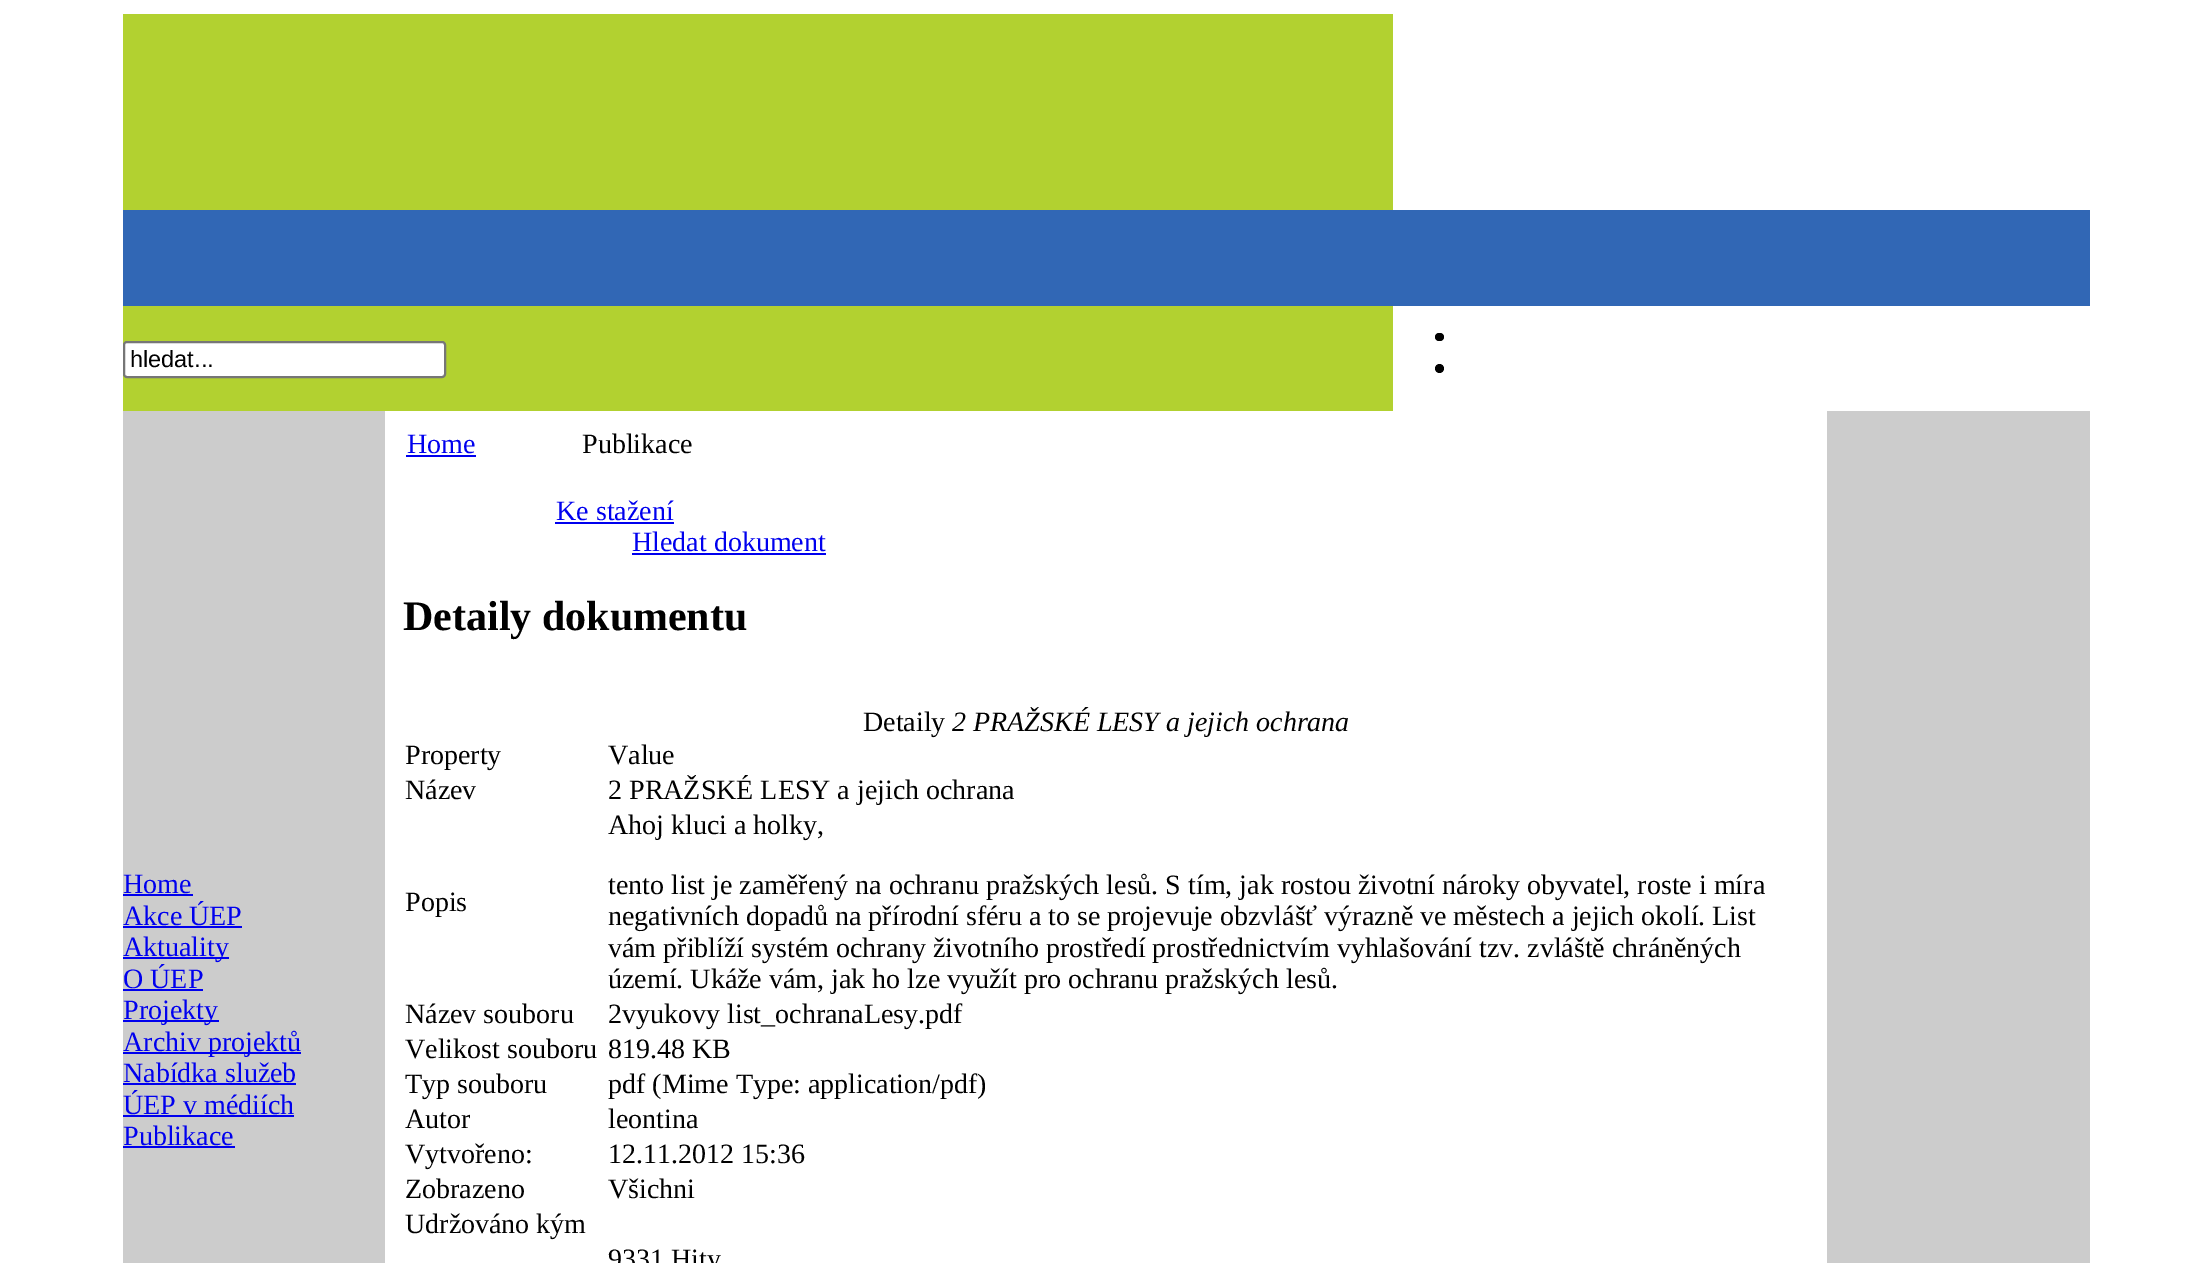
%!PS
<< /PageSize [2212 1263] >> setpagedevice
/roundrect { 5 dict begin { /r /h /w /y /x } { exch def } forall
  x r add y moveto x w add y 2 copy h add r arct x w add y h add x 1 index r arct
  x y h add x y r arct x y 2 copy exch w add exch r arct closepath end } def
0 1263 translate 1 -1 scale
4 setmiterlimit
1 setgray
0 0 2212 1263 rectfill
0.698 0.82 0.188 setrgbcolor
123 14 1270 196 rectfill
0.192 0.404 0.71 setrgbcolor
123 210 1967 96 rectfill
0.698 0.82 0.188 setrgbcolor
123 306 1270 105 rectfill
1 setgray
124 342 321 35 3 roundrect gsave fill grestore
0.463 setgray
2 setlinewidth
stroke
/LiberationSans-Regular [23.5 0 0 -23.5 0 0] selectfont
0 setgray
130 367 moveto (hledat...) show
1435 333 9 8 4 roundrect fill
newpath 1439.5 368.5 4.5 0 360 arc closepath fill
0.8 setgray
123 411 262 852 rectfill
/LiberationSerif-Regular [28 0 0 -28 0 0] selectfont
0 0 0.933 setrgbcolor
123 893 moveto (Home) show
123 894 70 2 rectfill
123 925 moveto (Akce ÚEP) show
123 926 119 2 rectfill
123 957 106 2 rectfill
123 956 moveto (Aktuality) show
123 988 moveto (O ÚEP) show
123 989 80 2 rectfill
123 1020 96 2 rectfill
123 1019 moveto (Projekty) show
123 1052 178 2 rectfill
123 1051 moveto (Archiv projektů) show
123 1082 moveto (Nabídka služeb) show
123 1083 173 2 rectfill
123 1114 moveto (ÚEP v médiích) show
123 1115 171 2 rectfill
123 1145 moveto (Publikace) show
123 1146 112 2 rectfill
407 453 moveto (Home) show
406 455 70 2 rectfill
0 setgray
582 453 moveto (Publikace) show
0 0 0.933 setrgbcolor
556 520 moveto (Ke stažení) show
555 522 119 2 rectfill
632 551 moveto (Hledat dokument) show
632 553 194 2 rectfill
/LiberationSerif-Bold [42 0 0 -42 0 0] selectfont
0 setgray
403 630 moveto (Detaily dokumentu) show
/LiberationSerif-Regular [28 0 0 -28 0 0] selectfont
863 731 moveto (Detaily) show
/LiberationSerif-Italic [28 0 0 -28 0 0] selectfont
952 731 moveto (2 PRAŽSKÉ LESY a jejich ochrana) show
/LiberationSerif-Regular [28 0 0 -28 0 0] selectfont
405 764 moveto (Property) show
608 764 moveto (Value) show
405 799 moveto (Název) show
608 799 moveto (2 PRAŽSKÉ LESY a jejich ochrana) show
405 911 moveto (Popis) show
608 834 moveto (Ahoj kluci a holky,) show
608 894 moveto (tento list je zaměřený na ochranu pražských lesů. S tím, jak rostou životní nároky obyvatel, roste i míra) show
608 925 moveto (negativních dopadů na přírodní sféru a to se projevuje obzvlášť výrazně ve městech a jejich okolí. List) show
608 957 moveto (vám přiblíží systém ochrany životního prostředí prostřednictvím vyhlašování tzv. zvláště chráněných) show
608 988 moveto (území. Ukáže vám, jak ho lze využít pro ochranu pražských lesů.) show
405 1023 moveto (Název souboru) show
608 1023 moveto (2vyukovy list_ochranaLesy.pdf) show
405 1058 moveto (Velikost souboru) show
608 1058 moveto (819.48 KB) show
405 1093 moveto (Typ souboru) show
608 1093 moveto (pdf \(Mime Type: application/pdf\)) show
405 1128 moveto (Autor) show
608 1128 moveto (leontina) show
405 1163 moveto (Vytvořeno:) show
608 1163 moveto (12.11.2012 15:36) show
405 1198 moveto (Zobrazeno) show
608 1198 moveto (Všichni) show
405 1233 moveto (Udržováno kým) show
608 1268 moveto (9331 Hity) show
0.8 setgray
1827 411 263 852 rectfill
showpage
